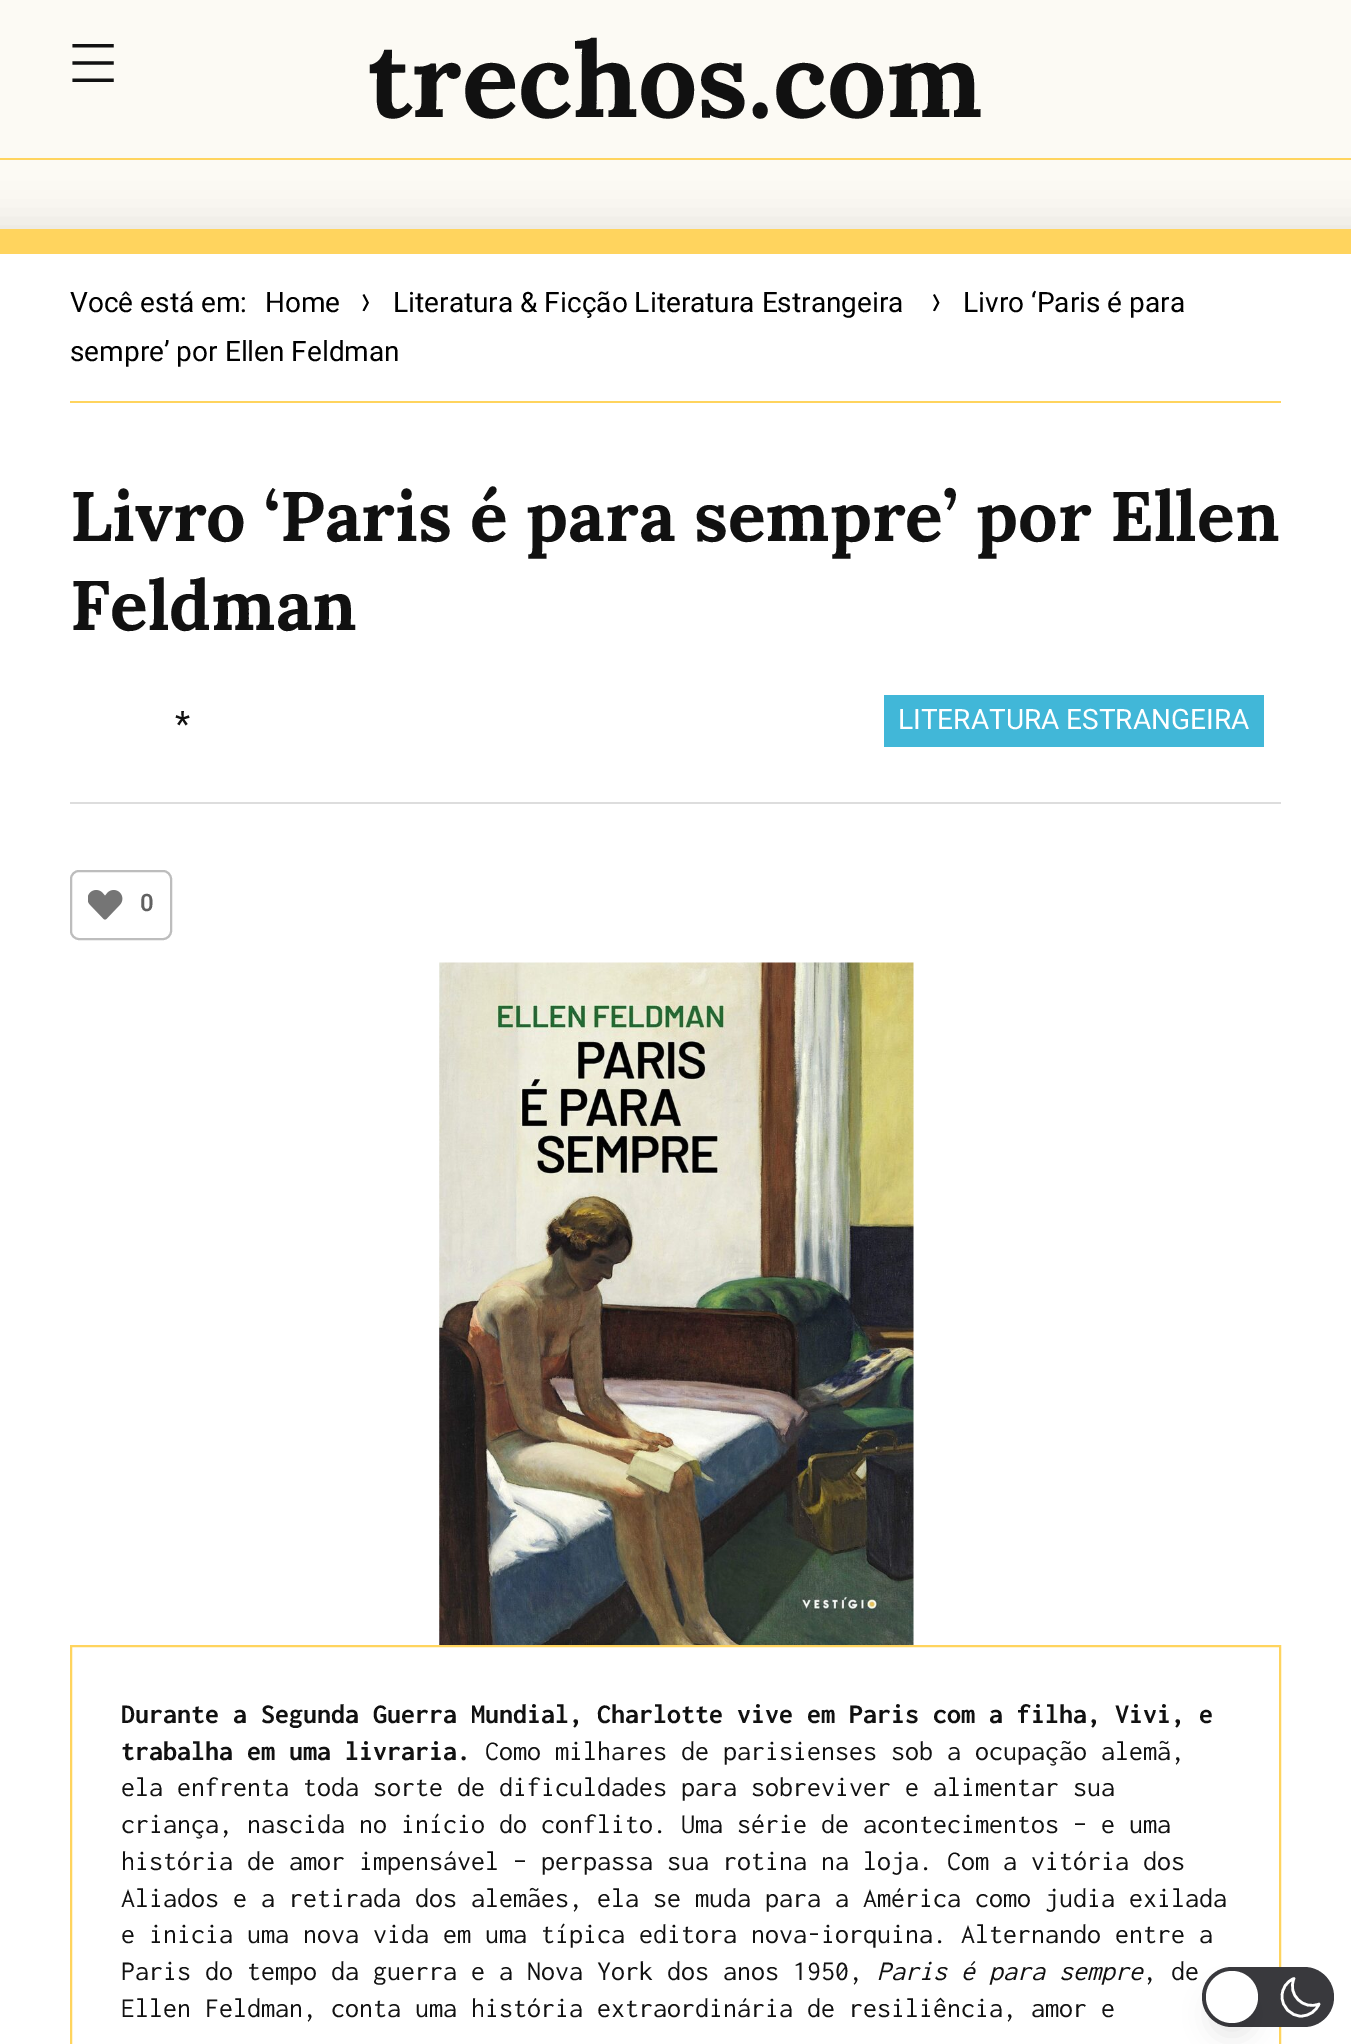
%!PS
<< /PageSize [1351 2044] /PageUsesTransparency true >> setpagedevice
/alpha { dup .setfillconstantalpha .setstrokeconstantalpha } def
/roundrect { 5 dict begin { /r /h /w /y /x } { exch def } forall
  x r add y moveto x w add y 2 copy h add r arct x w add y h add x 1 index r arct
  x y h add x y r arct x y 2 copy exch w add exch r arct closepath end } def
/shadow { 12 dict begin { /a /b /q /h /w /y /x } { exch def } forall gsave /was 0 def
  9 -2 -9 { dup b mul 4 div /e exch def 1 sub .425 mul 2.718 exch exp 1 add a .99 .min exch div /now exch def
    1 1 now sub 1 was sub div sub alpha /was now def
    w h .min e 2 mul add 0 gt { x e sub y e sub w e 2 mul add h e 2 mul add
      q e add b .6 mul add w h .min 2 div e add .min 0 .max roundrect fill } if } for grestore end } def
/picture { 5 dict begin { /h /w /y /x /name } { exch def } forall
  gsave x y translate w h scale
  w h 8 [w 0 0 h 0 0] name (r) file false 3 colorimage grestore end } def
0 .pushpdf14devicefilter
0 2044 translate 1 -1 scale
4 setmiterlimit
0.988 0.98 0.957 setrgbcolor
0 0 1351 2044 rectfill
(img1.rgb) 72 44 42 38 picture
/Lora-Bold [105 0 0 -105 0 0] selectfont
0.067 setgray
368 117 moveto (trechos.com) show
1 0.831 0.369 setrgbcolor
0 158 1351 2 rectfill
0 setgray
-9 221 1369 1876 0 17.5 0.08 shadow
1 setgray
0 254 1351 1790 rectfill
1 0.831 0.369 setrgbcolor
0 229 1351 25 rectfill
70 401 1211 2 rectfill
/Heebo-Regular [28 0 0 -28 0 0] selectfont
0 setgray
70 312 moveto (Você está em:) show
265 312 moveto (Home) show
(img2.rgb) 362 294 7 18 picture
393 312 moveto (Literatura & Ficção Literatura Estrangeira) show
(img3.rgb) 933 294 7 18 picture
963 312 moveto (Livro ‘Paris é para) show
70 361 moveto (sempre’ por Ellen Feldman) show
0.867 setgray
70 802 1211 2 rectfill
/Lora-Bold [70 0 0 -70 0 0] selectfont
0.067 setgray
70 541 moveto (Livro ‘Paris é para sempre’ por Ellen) show
70 630 moveto (Feldman) show
/Heebo-Regular [35 0 0 -35 0 0] selectfont
175 736 moveto (*) show
0.255 0.718 0.847 setrgbcolor
884 695 380 52 rectfill
/Heebo-Regular [28 0 0 -28 0 0] selectfont
1 setgray
898 729 moveto (LITERATURA ESTRANGEIRA) show
0.741 setgray
2 setlinewidth
71 871 100 68 8 roundrect stroke
(img4.rgb) 88 890 35 30 picture
/Heebo-SemiBold [24 0 0 -24 0 0] selectfont
0.38 setgray
140 911 moveto (0) show
(img5.rgb) 439 962 475 683 picture
1 0.831 0.369 setrgbcolor
71 1646 1209 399 rectstroke
/Inconsolata-Bold [28 0 0 -28 0 0] selectfont
0.067 setgray
121 1723 moveto (Durante a Segunda Guerra Mundial, Charlotte vive em Paris com a filha, Vivi, e) show
121 1760 moveto (trabalha em uma livraria.) show
/Inconsolata-Regular [28 0 0 -28 0 0] selectfont
485 1760 moveto (Como milhares de parisienses sob a ocupação alemã,) show
121 1796 moveto (ela enfrenta toda sorte de dificuldades para sobreviver e alimentar sua) show
121 1833 moveto (criança, nascida no início do conflito. Uma série de acontecimentos – e uma) show
121 1870 moveto (história de amor impensável – perpassa sua rotina na loja. Com a vitória dos) show
121 1907 moveto (Aliados e a retirada dos alemães, ela se muda para a América como judia exilada) show
121 1943 moveto (e inicia uma nova vida em uma típica editora nova-iorquina. Alternando entre a) show
121 1980 moveto (Paris do tempo da guerra e a Nova York dos anos 1950,) show
/Inconsolata-Italic [28 0 0 -28 0 0] selectfont
877 1980 moveto (Paris é para sempre) show
/Inconsolata-Regular [28 0 0 -28 0 0] selectfont
1143 1980 moveto (, de) show
121 2017 moveto (Ellen Feldman, conta uma história extraordinária de resiliência, amor e) show
0.224 0.224 0.239 setrgbcolor
1202 1967 132 60 30 roundrect fill
1 setgray
2.6 setlinewidth
1 setlinecap
1 setlinejoin
newpath 1319 2004 moveto 1303.5 2010.5 1287 1994.5 1294 1978.5 curveto 1286.5 1981.5 1282 1988.5 1282 1996.5 curveto 1282 2007 1290.5 2016 1301 2016 curveto 1309.5 2016 1316 2011 1319 2004 curveto closepath stroke
0 setgray
1211 1993 42 42 21 13 0.1 shadow
1 setgray
newpath 1232 1997 26 0 360 arc closepath fill
.poppdf14devicefilter showpage
